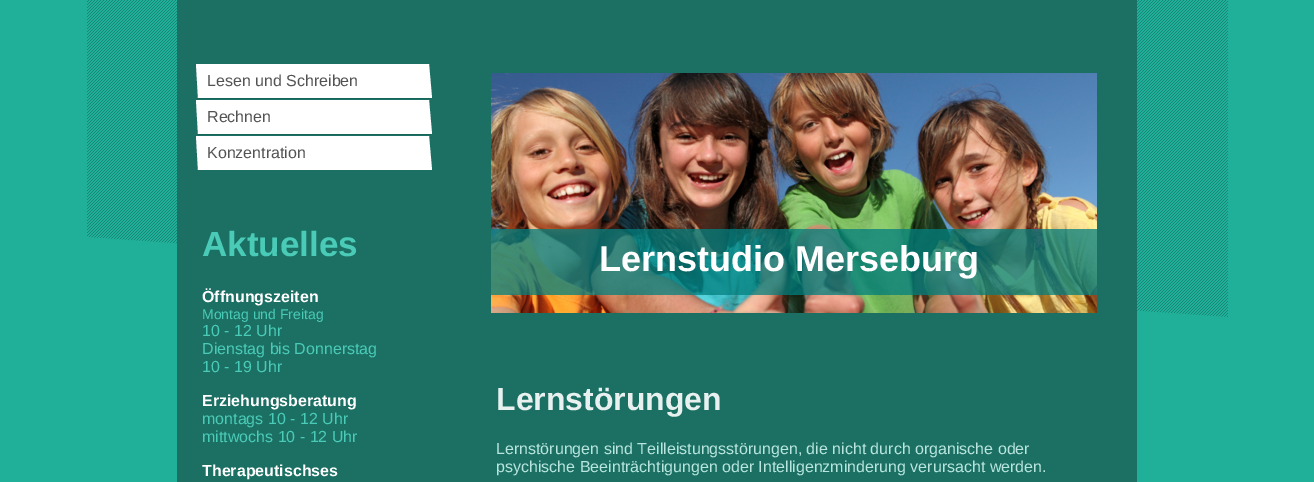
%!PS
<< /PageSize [1314 482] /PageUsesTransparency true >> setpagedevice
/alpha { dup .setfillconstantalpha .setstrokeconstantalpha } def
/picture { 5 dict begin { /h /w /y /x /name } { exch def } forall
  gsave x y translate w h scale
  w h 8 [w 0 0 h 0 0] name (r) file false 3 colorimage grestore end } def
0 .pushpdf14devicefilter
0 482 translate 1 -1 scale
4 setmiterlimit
0.125 0.686 0.6 setrgbcolor
0 0 1314 482 rectfill
(img1.rgb) 87 0 1141 317 picture
0.106 0.439 0.388 setrgbcolor
177 0 960 482 rectfill
0.094 0.396 0.349 setrgbcolor
197 98 234 1 rectfill
1 setgray
newpath 196 64 moveto 429 64 lineto 432 98 lineto 198 98 lineto closepath fill
/LiberationSans-Regular [16 0 0 -16 0 0] selectfont
0.325 setgray
207 86 moveto (Lesen und Schreiben) show
0.094 0.396 0.349 setrgbcolor
197 134 234 1 rectfill
1 setgray
newpath 196 100 moveto 429 100 lineto 432 134 lineto 198 134 lineto closepath fill
0.325 setgray
207 122 moveto (Rechnen) show
1 setgray
newpath 196 136 moveto 429 136 lineto 432 170 lineto 198 170 lineto closepath fill
0.325 setgray
207 158 moveto (Konzentration) show
/LiberationSans-Bold [35 0 0 -35 0 0] selectfont
0.29 0.796 0.718 setrgbcolor
202 256 moveto (Aktuelles) show
/LiberationSans-Bold [16 0 0 -16 0 0] selectfont
1 setgray
202 302 moveto (Öffnungszeiten) show
/LiberationSans-Regular [14 0 0 -14 0 0] selectfont
0.29 0.796 0.718 setrgbcolor
202 319 moveto (Montag und Freitag) show
/LiberationSans-Regular [16 0 0 -16 0 0] selectfont
202 336 moveto (10 - 12 Uhr) show
202 354 moveto (Dienstag bis Donnerstag) show
202 372 moveto (10 - 19 Uhr) show
/LiberationSans-Bold [16 0 0 -16 0 0] selectfont
1 setgray
202 406 moveto (Erziehungsberatung) show
/LiberationSans-Regular [16 0 0 -16 0 0] selectfont
0.29 0.796 0.718 setrgbcolor
202 424 moveto (montags 10 - 12 Uhr) show
202 442 moveto (mittwochs 10 - 12 Uhr) show
/LiberationSans-Bold [16 0 0 -16 0 0] selectfont
1 setgray
202 476 moveto (Therapeutischses) show
(img2.rgb) 491 73 606 240 picture
0.75 alpha
0.004 0.498 0.494 setrgbcolor
491 229 606 66 rectfill
/LiberationSans-Bold [36 0 0 -36 0 0] selectfont
1 alpha
1 setgray
599 271 moveto (Lernstudio Merseburg) show
/LiberationSans-Bold [32 0 0 -32 0 0] selectfont
0.91 0.945 0.937 setrgbcolor
496 410 moveto (Lernstörungen) show
/LiberationSans-Regular [16 0 0 -16 0 0] selectfont
0.725 0.898 0.875 setrgbcolor
496 454 moveto (Lernstörungen sind Teilleistungsstörungen, die nicht durch organische oder) show
496 472 moveto (psychische Beeinträchtigungen oder Intelligenzminderung verursacht werden.) show
.poppdf14devicefilter showpage
